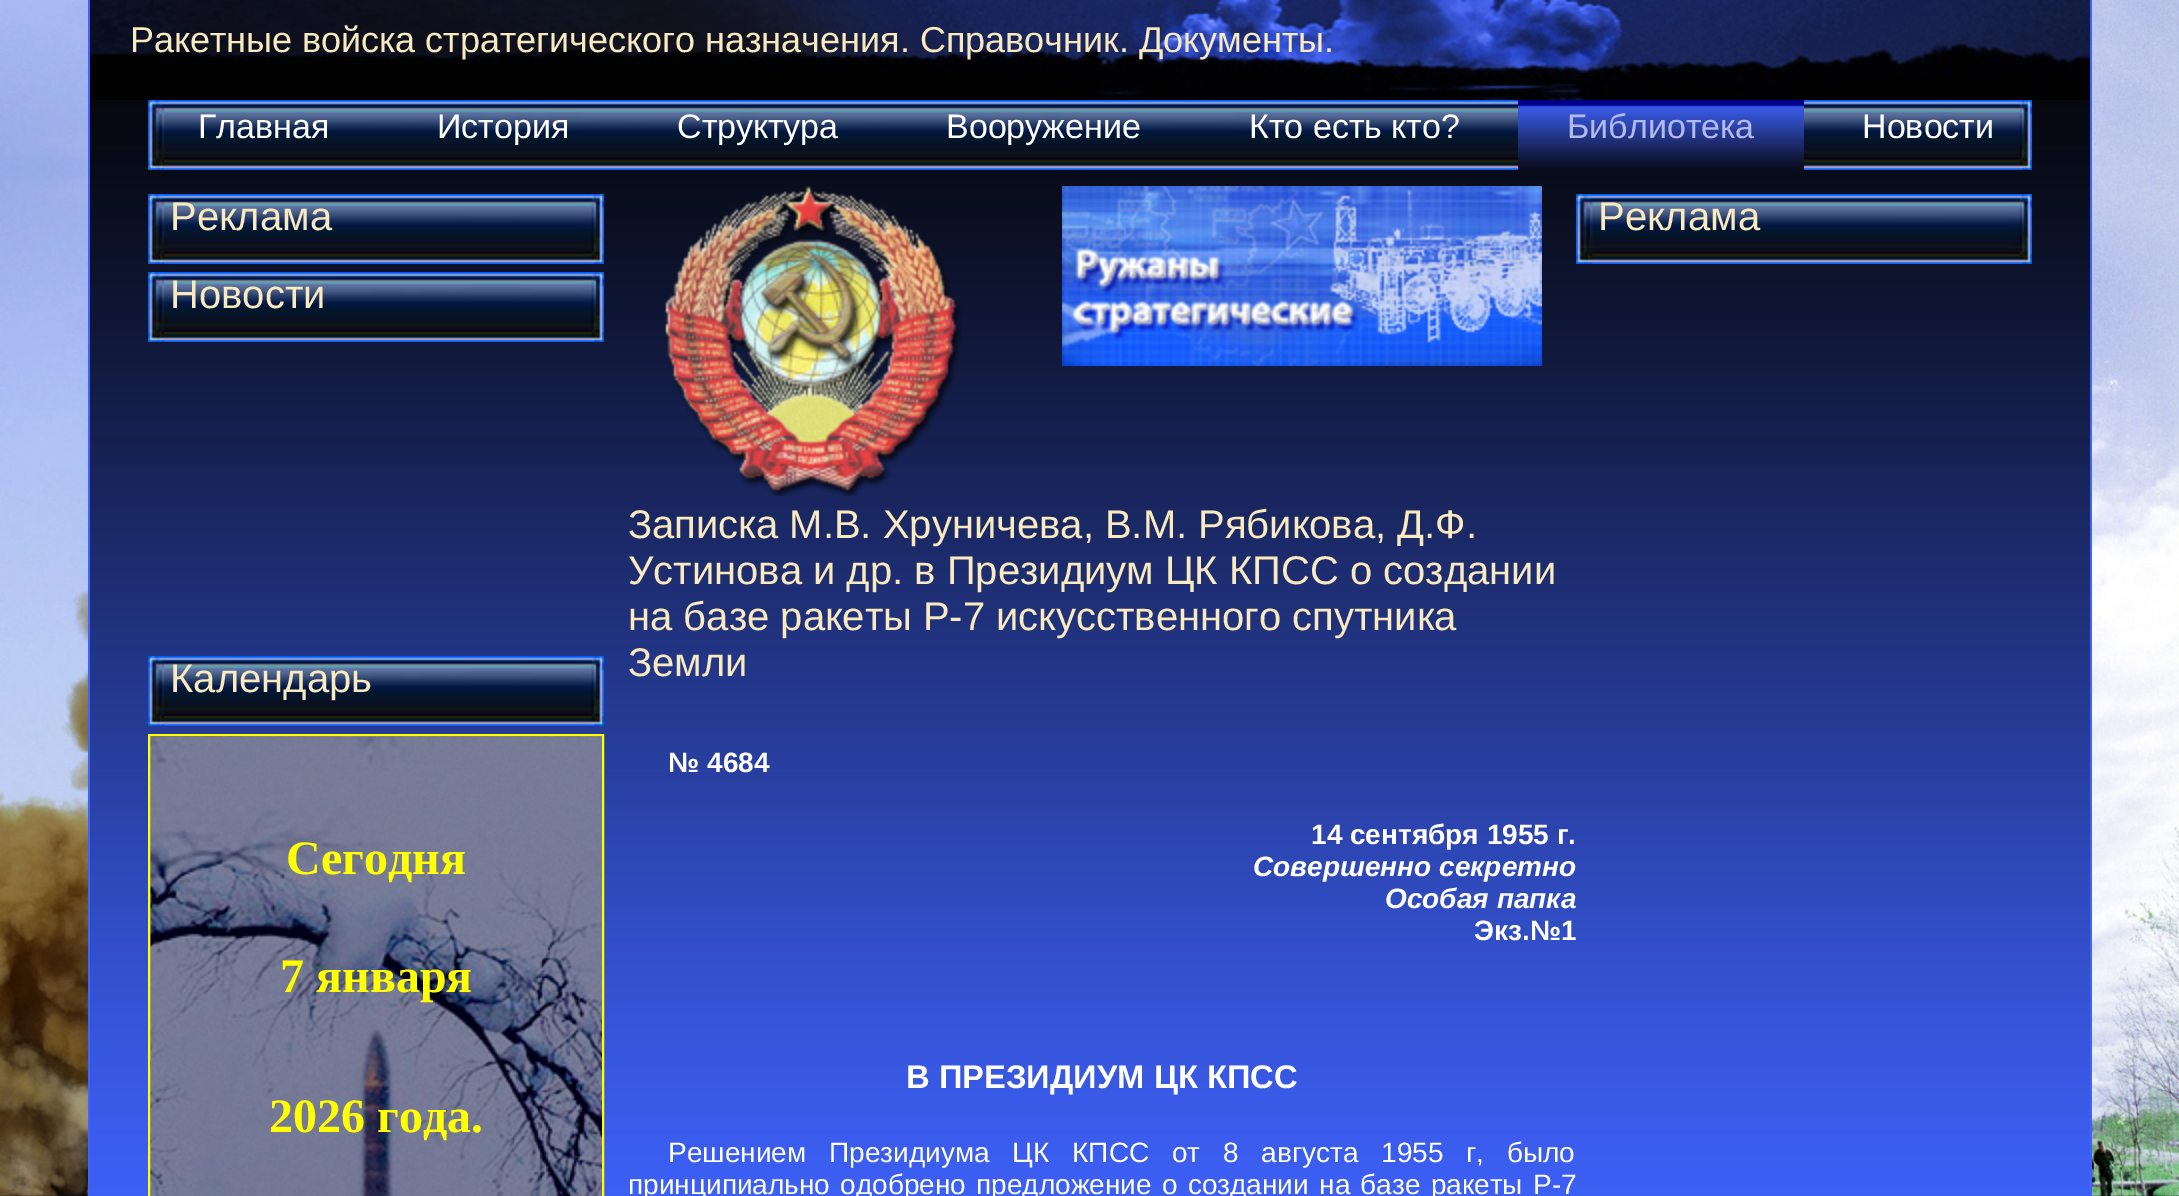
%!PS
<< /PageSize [2179 1196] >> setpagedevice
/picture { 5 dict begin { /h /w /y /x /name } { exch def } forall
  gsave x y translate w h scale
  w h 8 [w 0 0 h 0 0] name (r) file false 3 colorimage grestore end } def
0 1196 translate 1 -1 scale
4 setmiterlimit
1 setgray
0 0 2179 1196 rectfill
(img1.rgb) 0 0 2179 1196 picture
0.247 0.388 0.996 setrgbcolor
88 0 2004 1196 rectfill
(img2.rgb) 90 0 2000 100 picture
/LiberationSans-Regular [36 0 0 -36 0 0] selectfont
0.976 0.918 0.749 setrgbcolor
130 52 moveto (Ракетные войска стратегического назначения. Справочник. Документы.) show
(img3.rgb) 90 100 2000 1096 picture
(img4.rgb) 148 100 1884 70 picture
(img5.rgb) 1518 100 286 70 picture
/LiberationSans-Regular [34 0 0 -34 0 0] selectfont
1 setgray
198 138 moveto (Главная) show
437 138 moveto (История) show
677 138 moveto (Структура) show
946 138 moveto (Вооружение) show
1249 138 moveto (Кто есть кто?) show
0.698 0.725 0.925 setrgbcolor
1567 138 moveto (Библиотека) show
1 setgray
1862 138 moveto (Новости) show
(img6.rgb) 148 194 456 70 picture
/LiberationSans-Regular [40 0 0 -40 0 0] selectfont
0.976 0.918 0.749 setrgbcolor
170 230 moveto (Реклама) show
(img6.rgb) 148 272 456 70 picture
170 308 moveto (Новости) show
(img6.rgb) 148 656 456 70 picture
170 692 moveto (Календарь) show
0 0 0.2 setrgbcolor
150 736 452 460 rectfill
(img7.rgb) 150 736 452 460 picture
1 1 0 setrgbcolor
2 setlinewidth
149 735 454 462 rectstroke
/LiberationSerif-Bold [48 0 0 -48 0 0] selectfont
286 874 moveto (Сегодня) show
280 992 moveto (7 января) show
269 1132 moveto (2026 года.) show
(img6.rgb) 1576 194 456 70 picture
/LiberationSans-Regular [40 0 0 -40 0 0] selectfont
0.976 0.918 0.749 setrgbcolor
1598 230 moveto (Реклама) show
(img8.rgb) 665 186 297 310 picture
(img9.rgb) 1062 186 480 180 picture
628 538 moveto (Записка М.В. Хруничева, В.М. Рябикова, Д.Ф.) show
628 584 moveto (Устинова и др. в Президиум ЦК КПСС о создании) show
628 630 moveto (на базе ракеты Р-7 искусственного спутника) show
628 676 moveto (Земли) show
/LiberationSans-Bold [28 0 0 -28 0 0] selectfont
1 setgray
668 772 moveto (№ 4684) show
1311 844 moveto (14 сентября 1955 г.) show
/LiberationSans-BoldItalic [28 0 0 -28 0 0] selectfont
1253 876 moveto (Совершенно секретно) show
1385 908 moveto (Особая папка) show
/LiberationSans-Bold [28 0 0 -28 0 0] selectfont
1474 940 moveto (Экз.№1) show
/LiberationSans-Bold [32.75 0 0 -32.75 0 0] selectfont
906 1088 moveto (В ПРЕЗИДИУМ ЦК КПСС) show
/LiberationSans-Regular [28 0 0 -28 0 0] selectfont
668 1162 moveto 15 0 32 (Решением Президиума ЦК КПСС от 8 августа 1955 г, было) widthshow
628 1194 moveto 2.5 0 32 (принципиально одобрено предложение о создании на базе ракеты Р-7) widthshow
showpage
